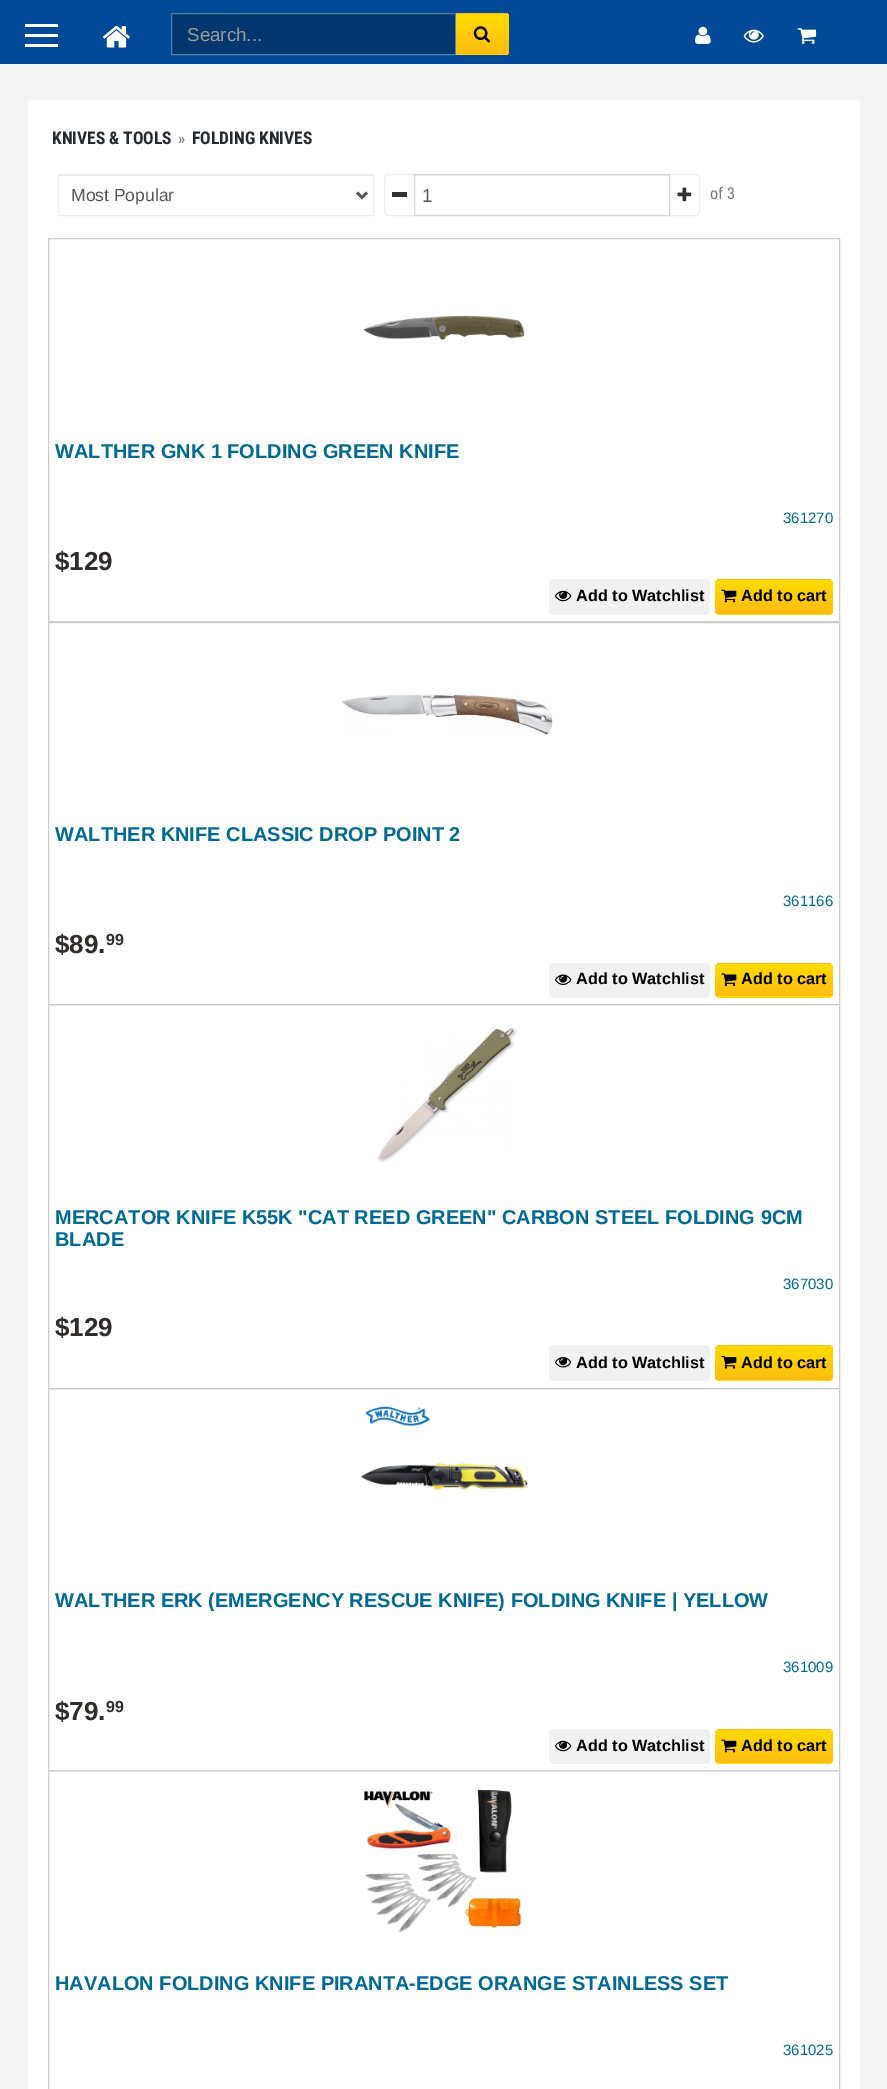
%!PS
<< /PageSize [887 2089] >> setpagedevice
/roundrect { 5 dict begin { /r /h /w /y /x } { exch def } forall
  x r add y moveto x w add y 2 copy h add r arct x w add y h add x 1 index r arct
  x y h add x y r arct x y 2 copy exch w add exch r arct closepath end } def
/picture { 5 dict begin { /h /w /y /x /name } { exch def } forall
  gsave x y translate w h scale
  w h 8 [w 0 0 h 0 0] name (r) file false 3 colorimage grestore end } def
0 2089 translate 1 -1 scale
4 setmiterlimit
0.957 0.957 0.961 setrgbcolor
0 0 887 2089 rectfill
0.008 0.29 0.592 setrgbcolor
0 0 887 64 rectfill
1 setgray
25 24 33 3 rectfill
25 34 33 3 rectfill
25 44 33 3 rectfill
(img1.rgb) 103 26 27 22 picture
0.004 0.212 0.435 setrgbcolor
172 14 283 40 rectfill
0.004 0.196 0.404 setrgbcolor
173 14 282 1 rectfill
gsave
newpath 455 13 moveto 504 13 lineto 507 13 509 15 509 18 curveto 509 50 lineto 509 53 507 55 504 55 curveto 455 55 lineto closepath clip newpath
gsave newpath 455 13 moveto 509 13 lineto 509 14 lineto 455 14 lineto closepath clip newpath
<< /ShadingType 2 /ColorSpace /DeviceRGB /Coords [482 -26 482 14] /Extend [true true] /Function << /FunctionType 2 /Domain [0 1] /C0 [1 0.863 0] /C1 [0.996 0.737 0.067] /N 1 >> >> shfill grestore
gsave newpath 455 54 moveto 509 54 lineto 509 55 lineto 455 55 lineto closepath clip newpath
<< /ShadingType 2 /ColorSpace /DeviceRGB /Coords [482 54 482 94] /Extend [true true] /Function << /FunctionType 2 /Domain [0 1] /C0 [1 0.863 0] /C1 [0.996 0.737 0.067] /N 1 >> >> shfill grestore
grestore
0.29 0.522 0.627 setrgbcolor
171.5 13.5 284 41 rectstroke
/LiberationSans-Regular [18.75 0 0 -18.75 0 0] selectfont
0.6 setgray
187 41 moveto (Search...) show
gsave
newpath 455 13 moveto 504 13 lineto 507 13 509 15 509 18 curveto 509 50 lineto 509 53 507 55 504 55 curveto 455 55 lineto closepath clip newpath
gsave newpath 456 14 moveto 509 14 lineto 509 54 lineto 456 54 lineto closepath clip newpath
<< /ShadingType 2 /ColorSpace /DeviceRGB /Coords [482 14 482 54] /Extend [true true] /Function << /FunctionType 2 /Domain [0 1] /C0 [1 0.863 0] /C1 [0.996 0.737 0.067] /N 1 >> >> shfill grestore
grestore
(img2.rgb) 473 26 17 17 picture
(img3.rgb) 695 26 16 18 picture
(img4.rgb) 743 29 21 14 picture
(img5.rgb) 797 28 20 16 picture
1 setgray
28 100 832 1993 4 roundrect fill
/RobotoCondensed-Bold [17.5 0 0 -17.5 0 0] selectfont
0.145 0.165 0.184 setrgbcolor
52 144 moveto (KNIVES & TOOLS) show
/RobotoCondensed-Bold [16.25 0 0 -16.25 0 0] selectfont
0.529 0.541 0.549 setrgbcolor
178 144 moveto (») show
/RobotoCondensed-Bold [17.5 0 0 -17.5 0 0] selectfont
0.145 0.165 0.184 setrgbcolor
192 144 moveto (FOLDING KNIVES) show
0.925 setgray
59 175 314 1 rectfill
0.933 setgray
58.5 174.5 315 41 rectstroke
0.333 setgray
2.5 setlinewidth
newpath 357 192.5 moveto 362 197.5 lineto 367 192.5 lineto stroke
/LiberationSans-Regular [17.5 0 0 -17.5 0 0] selectfont
71 201 moveto (Most Popular) show
0.933 setgray
1 setlinewidth
newpath 389 174.5 moveto 414.5 174.5 lineto 414.5 215.5 lineto 389 215.5 lineto 386.5 215.5 384.5 213.5 384.5 211 curveto 384.5 179 lineto 384.5 176.5 386.5 174.5 389 174.5 curveto closepath stroke
0.2 setgray
392 192 15 5 rectfill
0.925 setgray
415 175 254 1 rectfill
0.933 setgray
newpath 669.5 174.5 moveto 695 174.5 lineto 697.5 174.5 699.5 176.5 699.5 179 curveto 699.5 211 lineto 699.5 213.5 697.5 215.5 695 215.5 curveto 669.5 215.5 lineto closepath stroke
0.843 setgray
414.5 174.5 255 41 rectstroke
/LiberationSans-Regular [18.75 0 0 -18.75 0 0] selectfont
0.333 setgray
422 202 moveto (1) show
(img6.rgb) 677 187 15 15 picture
/RobotoCondensed-Regular [16.25 0 0 -16.25 0 0] selectfont
0.467 setgray
710 199 moveto (of 3) show
0.8 setgray
48.5 238.5 791 384 rectstroke
(img7.rgb) 363 315 162 26 picture
/LiberationSans-Bold [20 0 0 -20 0 0] selectfont
0 0.412 0.58 setrgbcolor
55 458 moveto (WALTHER GNK 1 FOLDING GREEN KNIFE) show
/LiberationSans-Regular [15 0 0 -15 0 0] selectfont
783 523 moveto (361270) show
/LiberationSans-Bold [26 0 0 -26 0 0] selectfont
0.184 0.173 0.165 setrgbcolor
55 570 moveto ($129) show
0.945 setgray
549 579 161 36 5 roundrect fill
(img8.rgb) 555 590 17 12 picture
/LiberationSans-Bold [16.25 0 0 -16.25 0 0] selectfont
0 setgray
576 601 moveto (Add to Watchlist) show
gsave
715 579 118 36 5 roundrect clip newpath
gsave newpath 715 579 moveto 833 579 lineto 833 580 lineto 715 580 lineto closepath clip newpath
<< /ShadingType 2 /ColorSpace /DeviceRGB /Coords [774 546 774 580] /Extend [true true] /Function << /FunctionType 2 /Domain [0 1] /C0 [1 0.863 0] /C1 [0.996 0.737 0.067] /N 1 >> >> shfill grestore
gsave newpath 715 580 moveto 833 580 lineto 833 614 lineto 715 614 lineto closepath clip newpath
<< /ShadingType 2 /ColorSpace /DeviceRGB /Coords [774 580 774 614] /Extend [true true] /Function << /FunctionType 2 /Domain [0 1] /C0 [1 0.863 0] /C1 [0.996 0.737 0.067] /N 1 >> >> shfill grestore
gsave newpath 715 614 moveto 833 614 lineto 833 615 lineto 715 615 lineto closepath clip newpath
<< /ShadingType 2 /ColorSpace /DeviceRGB /Coords [774 614 774 648] /Extend [true true] /Function << /FunctionType 2 /Domain [0 1] /C0 [1 0.863 0] /C1 [0.996 0.737 0.067] /N 1 >> >> shfill grestore
grestore
(img9.rgb) 721 589 16 14 picture
741 601 moveto (Add to cart) show
0.8 setgray
48.5 621.5 791 383 rectstroke
(img10.rgb) 341 694 212 41 picture
/LiberationSans-Bold [20 0 0 -20 0 0] selectfont
0 0.412 0.58 setrgbcolor
55 841 moveto (WALTHER KNIFE CLASSIC DROP POINT 2) show
/LiberationSans-Regular [15 0 0 -15 0 0] selectfont
783 906 moveto (361166) show
/LiberationSans-Bold [26 0 0 -26 0 0] selectfont
0.184 0.173 0.165 setrgbcolor
55 953 moveto ($89.) show
/LiberationSans-Bold [16 0 0 -16 0 0] selectfont
106 945 moveto (99) show
0.945 setgray
549 963 161 35 5 roundrect fill
(img11.rgb) 555 974 17 11 picture
/LiberationSans-Bold [16.25 0 0 -16.25 0 0] selectfont
0 setgray
576 984 moveto (Add to Watchlist) show
gsave
715 963 118 35 5 roundrect clip newpath
gsave newpath 715 963 moveto 833 963 lineto 833 964 lineto 715 964 lineto closepath clip newpath
<< /ShadingType 2 /ColorSpace /DeviceRGB /Coords [774 931 774 964] /Extend [true true] /Function << /FunctionType 2 /Domain [0 1] /C0 [1 0.863 0] /C1 [0.996 0.737 0.067] /N 1 >> >> shfill grestore
gsave newpath 715 964 moveto 833 964 lineto 833 996 lineto 715 996 lineto closepath clip newpath
<< /ShadingType 2 /ColorSpace /DeviceRGB /Coords [774 964 774 996] /Extend [true true] /Function << /FunctionType 2 /Domain [0 1] /C0 [1 0.863 0] /C1 [0.996 0.737 0.067] /N 1 >> >> shfill grestore
gsave newpath 715 996 moveto 833 996 lineto 833 998 lineto 715 998 lineto closepath clip newpath
<< /ShadingType 2 /ColorSpace /DeviceRGB /Coords [774 996 774 1029] /Extend [true true] /Function << /FunctionType 2 /Domain [0 1] /C0 [1 0.863 0] /C1 [0.996 0.737 0.067] /N 1 >> >> shfill grestore
grestore
(img12.rgb) 721 973 16 14 picture
741 984 moveto (Add to cart) show
0.8 setgray
48.5 1004.5 791 384 rectstroke
(img13.rgb) 377 1028 140 135 picture
/LiberationSans-Bold [20 0 0 -20 0 0] selectfont
0 0.412 0.58 setrgbcolor
55 1224 moveto (MERCATOR KNIFE K55K "CAT REED GREEN" CARBON STEEL FOLDING 9CM) show
55 1246 moveto (BLADE) show
/LiberationSans-Regular [15 0 0 -15 0 0] selectfont
783 1289 moveto (367030) show
/LiberationSans-Bold [26 0 0 -26 0 0] selectfont
0.184 0.173 0.165 setrgbcolor
55 1336 moveto ($129) show
0.945 setgray
549 1345 161 36 5 roundrect fill
(img14.rgb) 555 1357 17 11 picture
/LiberationSans-Bold [16.25 0 0 -16.25 0 0] selectfont
0 setgray
576 1368 moveto (Add to Watchlist) show
gsave
715 1345 118 36 5 roundrect clip newpath
gsave newpath 715 1345 moveto 833 1345 lineto 833 1346 lineto 715 1346 lineto closepath clip newpath
<< /ShadingType 2 /ColorSpace /DeviceRGB /Coords [774 1313 774 1346] /Extend [true true] /Function << /FunctionType 2 /Domain [0 1] /C0 [1 0.863 0] /C1 [0.996 0.737 0.067] /N 1 >> >> shfill grestore
gsave newpath 715 1346 moveto 833 1346 lineto 833 1380 lineto 715 1380 lineto closepath clip newpath
<< /ShadingType 2 /ColorSpace /DeviceRGB /Coords [774 1346 774 1380] /Extend [true true] /Function << /FunctionType 2 /Domain [0 1] /C0 [1 0.863 0] /C1 [0.996 0.737 0.067] /N 1 >> >> shfill grestore
gsave newpath 715 1380 moveto 833 1380 lineto 833 1381 lineto 715 1381 lineto closepath clip newpath
<< /ShadingType 2 /ColorSpace /DeviceRGB /Coords [774 1380 774 1414] /Extend [true true] /Function << /FunctionType 2 /Domain [0 1] /C0 [1 0.863 0] /C1 [0.996 0.737 0.067] /N 1 >> >> shfill grestore
grestore
(img15.rgb) 721 1355 16 14 picture
741 1368 moveto (Add to cart) show
0.8 setgray
48.5 1388.5 791 382 rectstroke
(img16.rgb) 360 1406 168 85 picture
gsave
55 1590 713 21 rectclip
/LiberationSans-Bold [20 0 0 -20 0 0] selectfont
0 0.412 0.58 setrgbcolor
55 1607 moveto (WALTHER ERK \(EMERGENCY RESCUE KNIFE\) FOLDING KNIFE | YELLOW) show
grestore
/LiberationSans-Regular [15 0 0 -15 0 0] selectfont
0 0.412 0.58 setrgbcolor
783 1672 moveto (361009) show
/LiberationSans-Bold [26 0 0 -26 0 0] selectfont
0.184 0.173 0.165 setrgbcolor
55 1720 moveto ($79.) show
/LiberationSans-Bold [16 0 0 -16 0 0] selectfont
106 1712 moveto (99) show
0.945 setgray
549 1729 161 35 5 roundrect fill
(img8.rgb) 555 1740 17 12 picture
/LiberationSans-Bold [16.25 0 0 -16.25 0 0] selectfont
0 setgray
576 1751 moveto (Add to Watchlist) show
gsave
715 1729 118 35 5 roundrect clip newpath
gsave newpath 715 1729 moveto 833 1729 lineto 833 1730 lineto 715 1730 lineto closepath clip newpath
<< /ShadingType 2 /ColorSpace /DeviceRGB /Coords [774 1698 774 1730] /Extend [true true] /Function << /FunctionType 2 /Domain [0 1] /C0 [1 0.863 0] /C1 [0.996 0.737 0.067] /N 1 >> >> shfill grestore
gsave newpath 715 1730 moveto 833 1730 lineto 833 1763 lineto 715 1763 lineto closepath clip newpath
<< /ShadingType 2 /ColorSpace /DeviceRGB /Coords [774 1730 774 1763] /Extend [true true] /Function << /FunctionType 2 /Domain [0 1] /C0 [1 0.863 0] /C1 [0.996 0.737 0.067] /N 1 >> >> shfill grestore
gsave newpath 715 1763 moveto 833 1763 lineto 833 1764 lineto 715 1764 lineto closepath clip newpath
<< /ShadingType 2 /ColorSpace /DeviceRGB /Coords [774 1763 774 1795] /Extend [true true] /Function << /FunctionType 2 /Domain [0 1] /C0 [1 0.863 0] /C1 [0.996 0.737 0.067] /N 1 >> >> shfill grestore
grestore
(img17.rgb) 721 1739 16 14 picture
741 1751 moveto (Add to cart) show
0.8 setgray
48.5 1770.5 791 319 rectstroke
(img18.rgb) 364 1789 157 144 picture
/LiberationSans-Bold [20 0 0 -20 0 0] selectfont
0 0.412 0.58 setrgbcolor
55 1990 moveto (HAVALON FOLDING KNIFE PIRANTA-EDGE ORANGE STAINLESS SET) show
/LiberationSans-Regular [15 0 0 -15 0 0] selectfont
783 2055 moveto (361025) show
showpage
